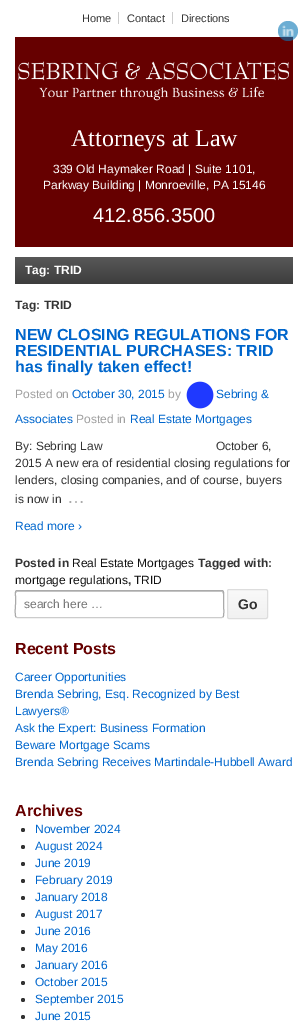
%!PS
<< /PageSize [308 1032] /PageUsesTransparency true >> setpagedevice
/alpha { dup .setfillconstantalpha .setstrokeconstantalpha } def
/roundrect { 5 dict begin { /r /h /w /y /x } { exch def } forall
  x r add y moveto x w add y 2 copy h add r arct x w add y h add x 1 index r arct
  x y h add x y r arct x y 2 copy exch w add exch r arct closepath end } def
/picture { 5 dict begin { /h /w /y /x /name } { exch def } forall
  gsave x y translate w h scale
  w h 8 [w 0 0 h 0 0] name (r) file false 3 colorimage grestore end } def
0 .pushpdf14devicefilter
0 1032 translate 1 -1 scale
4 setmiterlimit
1 setgray
0 0 308 1032 rectfill
/LiberationSans-Regular [11 0 0 -11 0 0] selectfont
0.2 setgray
82 22 moveto (Home) show
127 22 moveto (Contact) show
0.8 setgray
118 12 1 12 rectfill
0.2 setgray
181 22 moveto (Directions) show
0.8 setgray
172 12 1 12 rectfill
0.4 0 0 setrgbcolor
15 37 278 210 rectfill
0.6 alpha
0.031 0.467 0.71 setrgbcolor
newpath 288 31 10 0 360 arc closepath fill
1 alpha
(img1.rgb) 282 25 12 12 picture
(img2.rgb) 18 61 271 40 picture
/LiberationSerif-Regular [24 0 0 -24 0 0] selectfont
1 setgray
71 146 moveto (Attorneys at Law) show
/LiberationSans-Regular [12 0 0 -12 0 0] selectfont
53 173 moveto (339 Old Haymaker Road | Suite 1101,) show
43 189 moveto (Parkway Building | Monroeville, PA 15146) show
/LiberationSans-Regular [20 0 0 -20 0 0] selectfont
93 222 moveto (412.856.3500) show
gsave newpath 15 257 moveto 293 257 lineto 293 284 lineto 15 284 lineto closepath clip newpath
<< /ShadingType 2 /ColorSpace /DeviceRGB /Coords [154 257 154 284] /Extend [true true] /Function << /FunctionType 2 /Domain [0 1] /C0 [0.345 0.345 0.345] /C1 [0.239 0.239 0.239] /N 1 >> >> shfill grestore
/LiberationSans-Bold [12 0 0 -12 0 0] selectfont
25 274 moveto (Tag: TRID) show
0.2 setgray
15 309 moveto (Tag: TRID) show
/LiberationSans-Bold [16 0 0 -16 0 0] selectfont
0 0.4 0.8 setrgbcolor
15 340 moveto (NEW CLOSING REGULATIONS FOR) show
15 356 moveto (RESIDENTIAL PURCHASES: TRID) show
15 372 moveto (has finally taken effect!) show
/LiberationSans-Regular [12 0 0 -12 0 0] selectfont
0.624 setgray
15 398 moveto (Posted on) show
0 0.4 0.8 setrgbcolor
72 398 moveto (October 30, 2015) show
0.624 setgray
168 398 moveto (by) show
(img3.rgb) 186 381 28 28 picture
0 0.4 0.8 setrgbcolor
216 398 moveto (Sebring &) show
15 423 moveto (Associates) show
0.624 setgray
76 423 moveto (Posted in) show
0 0.4 0.8 setrgbcolor
130 423 moveto (Real Estate Mortgages) show
0.2 setgray
15 450 moveto (By: Sebring Law                                  October 6,) show
15 467 moveto (2015 A new era of residential closing regulations for) show
15 484 moveto (lenders, closing companies, and of course, buyers) show
15 503 moveto (is now in) show
/LiberationSans-Regular [18 0 0 -18 0 0] selectfont
0.667 setgray
67 503 moveto (…) show
/LiberationSans-Regular [12 0 0 -12 0 0] selectfont
0 0.4 0.8 setrgbcolor
15 530 moveto (Read more ›) show
/LiberationSans-Bold [12 0 0 -12 0 0] selectfont
0.2 setgray
15 567 moveto (Posted in) show
/LiberationSans-Regular [12 0 0 -12 0 0] selectfont
0.067 setgray
72 567 moveto (Real Estate Mortgages) show
/LiberationSans-Bold [12 0 0 -12 0 0] selectfont
0.2 setgray
198 567 moveto (Tagged with:) show
/LiberationSans-Regular [12 0 0 -12 0 0] selectfont
0.067 setgray
15 584 moveto (mortgage regulations) show
/LiberationSans-Bold [12 0 0 -12 0 0] selectfont
0.2 setgray
128 584 moveto (,) show
/LiberationSans-Regular [12 0 0 -12 0 0] selectfont
0.067 setgray
134 584 moveto (TRID) show
0.8 setgray
newpath 17 592 moveto 222 592 lineto 223 594 lineto 223 592 lineto 223 591 223 591 222 591 curveto 17 591 lineto 16 591 16 591 16 592 curveto 16 593 lineto closepath fill
newpath 223 617 moveto 222 617.5 lineto 17 617.5 lineto 16 617 lineto stroke
0.667 setgray
newpath 16 617 moveto 14.5 615.5 15.5 606 15.5 604 curveto 15.5 596 lineto 15.5 595.5 14.5 590.5 17 590.5 curveto 222 590.5 lineto 224.5 590.5 223.5 595.5 223.5 596 curveto 223.5 604 lineto 223.5 606 224.5 615.5 223 617 curveto stroke
0.459 setgray
24 608 moveto (search here …) show
gsave
227 589 41 30 2 roundrect clip newpath
gsave newpath 227 590 moveto 268 590 lineto 268 618 lineto 227 618 lineto closepath clip newpath
<< /ShadingType 2 /ColorSpace /DeviceRGB /Coords [248 590 248 618] /Extend [true true] /Function << /FunctionType 2 /Domain [0 1] /C0 [0.976 0.976 0.976] /C1 [0.945 0.945 0.945] /N 1 >> >> shfill grestore
grestore
0.867 setgray
227.5 589.5 40 29 1.5 roundrect stroke
/LiberationSans-Bold [14 0 0 -14 0 0] selectfont
0.2 setgray
238 609 moveto (Go) show
/LiberationSans-Bold [16 0 0 -16 0 0] selectfont
0.4 0 0 setrgbcolor
15 654 moveto (Recent Posts) show
/LiberationSans-Regular [12 0 0 -12 0 0] selectfont
0 0.4 0.8 setrgbcolor
15 681 moveto (Career Opportunities) show
15 698 moveto (Brenda Sebring, Esq. Recognized by Best) show
15 715 moveto (Lawyers®) show
15 732 moveto (Ask the Expert: Business Formation) show
15 749 moveto (Beware Mortgage Scams) show
15 766 moveto (Brenda Sebring Receives Martindale-Hubbell Award) show
/LiberationSans-Bold [16 0 0 -16 0 0] selectfont
0.4 0 0 setrgbcolor
15 816 moveto (Archives) show
0.2 setgray
newpath 23 830 2 0 360 arc closepath fill
/LiberationSans-Regular [12 0 0 -12 0 0] selectfont
0 0.4 0.8 setrgbcolor
35 833 moveto (November 2024) show
0.2 setgray
newpath 23 847 2 0 360 arc closepath fill
0 0.4 0.8 setrgbcolor
35 850 moveto (August 2024) show
0.2 setgray
newpath 23 864 2 0 360 arc closepath fill
0 0.4 0.8 setrgbcolor
35 867 moveto (June 2019) show
0.2 setgray
newpath 23 881 2 0 360 arc closepath fill
0 0.4 0.8 setrgbcolor
35 884 moveto (February 2019) show
0.2 setgray
newpath 23 898 2 0 360 arc closepath fill
0 0.4 0.8 setrgbcolor
35 901 moveto (January 2018) show
0.2 setgray
newpath 23 915 2 0 360 arc closepath fill
0 0.4 0.8 setrgbcolor
35 918 moveto (August 2017) show
0.2 setgray
newpath 23 932 2 0 360 arc closepath fill
0 0.4 0.8 setrgbcolor
35 935 moveto (June 2016) show
0.2 setgray
newpath 23 949 2 0 360 arc closepath fill
0 0.4 0.8 setrgbcolor
35 952 moveto (May 2016) show
0.2 setgray
newpath 23 966 2 0 360 arc closepath fill
0 0.4 0.8 setrgbcolor
35 969 moveto (January 2016) show
0.2 setgray
newpath 23 983 2 0 360 arc closepath fill
0 0.4 0.8 setrgbcolor
35 986 moveto (October 2015) show
0.2 setgray
newpath 23 1000 2 0 360 arc closepath fill
0 0.4 0.8 setrgbcolor
35 1003 moveto (September 2015) show
0.2 setgray
newpath 23 1017 2 0 360 arc closepath fill
0 0.4 0.8 setrgbcolor
35 1020 moveto (June 2015) show
.poppdf14devicefilter showpage
